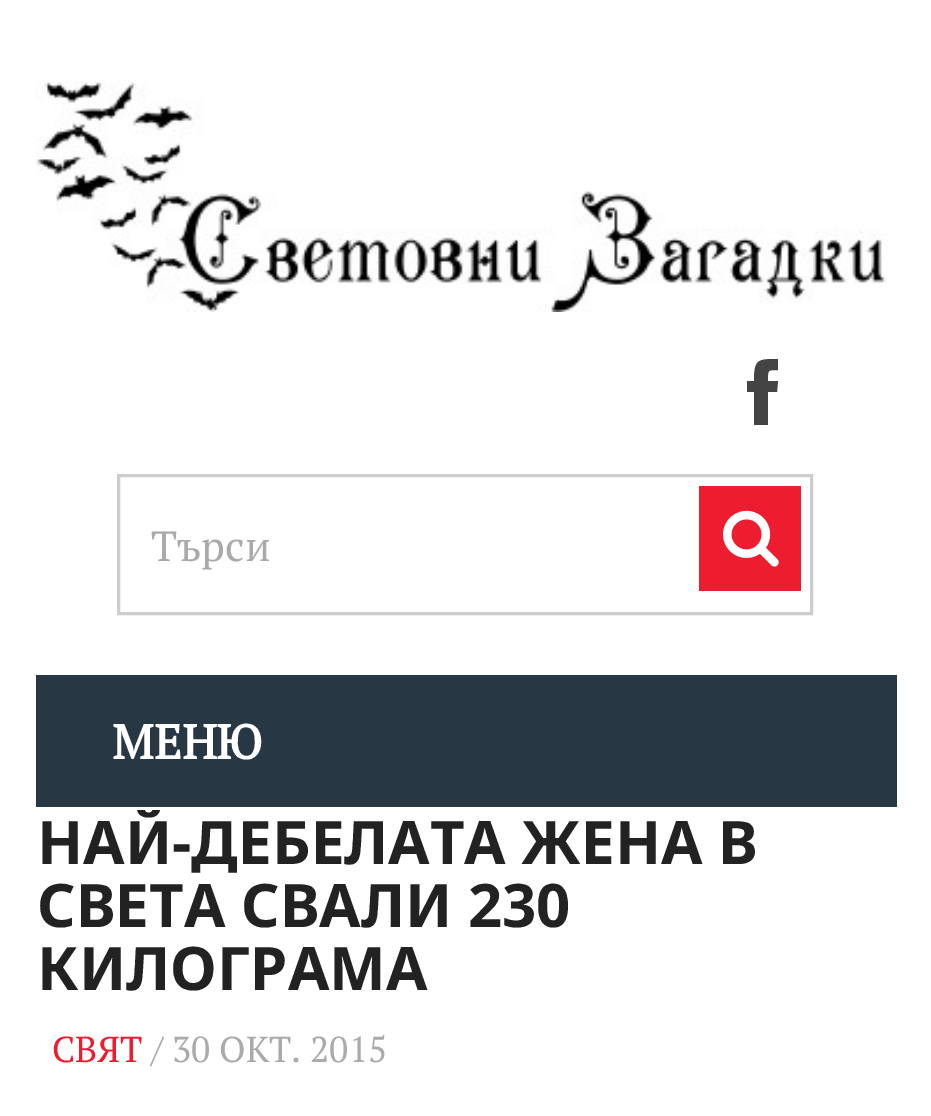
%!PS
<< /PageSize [931 1116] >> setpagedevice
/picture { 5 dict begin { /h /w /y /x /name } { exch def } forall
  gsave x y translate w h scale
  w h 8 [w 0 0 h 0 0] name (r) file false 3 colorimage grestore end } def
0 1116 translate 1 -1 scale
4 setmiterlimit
1 setgray
0 0 931 1116 rectfill
(img1.rgb) 36 81 851 231 picture
0.267 setgray
newpath 768 381 moveto 778 381 lineto 777 392 lineto 768 392 lineto 768 425 lineto 754 425 lineto 754 392 lineto 747 392 lineto 747 381 lineto 754 381 lineto 754 359 758 359 778 359 curveto 778 370 lineto 767 370 768 370 768 381 curveto closepath fill
0.804 setgray
3 setlinewidth
118.5 475.5 693 138 rectstroke
/PTSerif-Regular [42 0 0 -42 0 0] selectfont
0.667 setgray
151 561 moveto (Търси) show
0.929 0.11 0.184 setrgbcolor
699 486 102 105 rectfill
(img2.rgb) 723 510 56 57 picture
0.157 0.216 0.267 setrgbcolor
36 675 861 132 rectfill
/PTSerif-Bold [48 0 0 -48 0 0] selectfont
1 setgray
112 759 moveto (МЕНЮ) show
gsave
36 810 861 273 rectclip
/NotoSans-Bold [60 0 0 -60 0 0] selectfont
0.133 setgray
37 864 moveto (НАЙ-ДЕБЕЛАТА ЖЕНА В) show
grestore
/NotoSans-Bold [60 0 0 -60 0 0] selectfont
0.133 setgray
37 927 moveto (СВЕТА СВАЛИ 230) show
37 990 moveto (КИЛОГРАМА) show
/PTSerif-Regular [36 0 0 -36 0 0] selectfont
0.929 0.11 0.184 setrgbcolor
52 1062 moveto (СВЯТ) show
0.667 setgray
151 1062 moveto (/ 30 ОКТ. 2015) show
showpage
